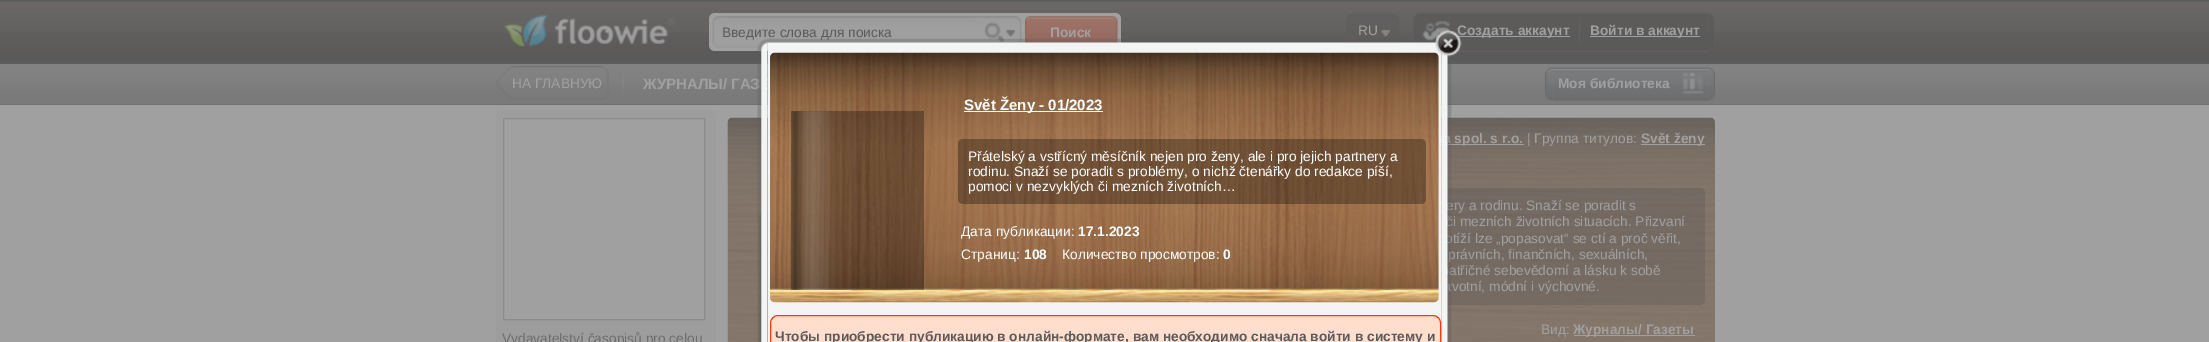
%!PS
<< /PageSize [2209 342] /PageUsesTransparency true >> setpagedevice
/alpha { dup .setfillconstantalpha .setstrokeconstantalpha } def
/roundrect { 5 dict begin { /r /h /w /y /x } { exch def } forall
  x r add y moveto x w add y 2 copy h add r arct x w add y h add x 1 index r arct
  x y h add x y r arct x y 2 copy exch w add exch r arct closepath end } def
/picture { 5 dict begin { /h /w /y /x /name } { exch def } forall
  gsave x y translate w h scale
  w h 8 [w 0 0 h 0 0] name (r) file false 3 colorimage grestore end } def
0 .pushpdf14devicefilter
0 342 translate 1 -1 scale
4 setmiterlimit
0.627 setgray
0 0 2209 342 rectfill
(img1.rgb) 0 0 2209 105 picture
(img2.rgb) 503 14 172 33 picture
709 13 412 38 6 roundrect fill
(img3.rgb) 712 16 310 32 picture
0.6 setgray
newpath 728 21 moveto 974 21 lineto 977 21 979 23 979 26 curveto 979 25 lineto 979 22 977 20 974 20 curveto 728 20 lineto 726 20 724 21 724 23 curveto 725 22 726 21 728 21 curveto closepath fill
/LiberationSans-Regular [13.75 0 0 -13.75 0 0] selectfont
0.357 0.353 0.353 setrgbcolor
722 37 moveto (Введите слова для поиска) show
(img4.rgb) 1025 16 93 27 picture
/LiberationSans-Bold [13.75 0 0 -13.75 0 0] selectfont
0.627 setgray
1050 37 moveto (Поиск) show
(img5.rgb) 1345 12 55 31 picture
/LiberationSans-Regular [13.75 0 0 -13.75 0 0] selectfont
1358 35 moveto (RU) show
(img6.rgb) 1412 12 8 31 picture
(img7.rgb) 1420 12 288 40 picture
(img8.rgb) 1422 21 28 21 picture
1458 36 112 1 rectfill
/LiberationSans-Bold [13.75 0 0 -13.75 0 0] selectfont
1457 35 moveto (Создать аккаунт) show
(img9.rgb) 1579 19 1 27 picture
1590 36 110 1 rectfill
1590 35 moveto (Войти в аккаунт) show
(img10.rgb) 1707 12 8 37 picture
(img11.rgb) 496 66 17 34 picture
(img12.rgb) 512 66 91 34 picture
/LiberationSans-Regular [13.75 0 0 -13.75 0 0] selectfont
512 88 moveto (НА ГЛАВНУЮ) show
(img13.rgb) 602 66 7 34 picture
(img14.rgb) 622 73 2 23 picture
/LiberationSans-Bold [15 0 0 -15 0 0] selectfont
643 89 moveto (ЖУРНАЛЫ/ ГАЗ) show
(img15.rgb) 1545 67 8 34 picture
(img16.rgb) 1552 67 156 35 picture
/LiberationSans-Bold [13.75 0 0 -13.75 0 0] selectfont
1558 88 moveto (Моя библиотека) show
(img17.rgb) 1682 72 22 22 picture
(img18.rgb) 1707 67 8 34 picture
0.616 setgray
496 111 220 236 5 roundrect fill
0.627 setgray
newpath 503.5 118.5 moveto 704.5 118.5 lineto 704.5 319.5 lineto 503.5 319.5 lineto closepath gsave fill grestore
0.545 setgray
stroke
/LiberationSans-Regular [13.75 0 0 -13.75 0 0] selectfont
0.427 setgray
502 343 moveto (Vydavatelství časopisů pro celou) show
(img19.rgb) 727 117 988 225 picture
(img20.rgb) 727 117 988 84 picture
0.627 setgray
1441 144 83 1 rectfill
/LiberationSans-Bold [13.75 0 0 -13.75 0 0] selectfont
1443 143 moveto (a spol. s r.o.) show
/LiberationSans-Regular [13.75 0 0 -13.75 0 0] selectfont
1527 143 moveto (| Группа титулов:) show
1641 144 64 1 rectfill
/LiberationSans-Bold [13.75 0 0 -13.75 0 0] selectfont
1641 143 moveto (Svět ženy) show
0.3 alpha
0.325 setgray
759 215 9 127 rectfill
1 alpha
(img21.rgb) 760 215 8 127 picture
0.3 alpha
1029 188 676 117 5 roundrect fill
/LiberationSans-Regular [13.75 0 0 -13.75 0 0] selectfont
1 alpha
0.627 setgray
1446 210 moveto (ery a rodinu. Snaží se poradit s) show
1446 226 moveto (či mezních životních situacích. Přizvaní) show
1445 243 moveto (otíží lze „popasovat“ se ctí a proč věřit,) show
1448 259 moveto (právních, finančních, sexuálních,) show
1449 275 moveto (atřičné sebevědomí a lásku k sobě) show
1444 291 moveto (avotní, módní i výchovné.) show
1541 334 moveto (Вид:) show
1574 335 121 1 rectfill
/LiberationSans-Bold [13.75 0 0 -13.75 0 0] selectfont
1573 334 moveto (Журналы/ Газеты) show
0.957 setgray
768 50 673 292 rectfill
(img23.rgb) 767 38 672 12 picture
(img22.rgb) 757 38 11 12 picture
(img26.rgb) 770 52 669 251 picture
(img28.rgb) 1441 52 11 290 picture
(img24.rgb) 1435 30 27 27 picture
(img25.rgb) 757 50 11 292 picture
0.3 alpha
0 setgray
791 111 133 179 rectfill
1 alpha
(img27.rgb) 792 111 41 179 picture
1 setgray
964 111 139 1 rectfill
/LiberationSans-Bold [15 0 0 -15 0 0] selectfont
964 110 moveto (Svět Ženy - 01/2023) show
0.3 alpha
0 setgray
958 139 468 65 5 roundrect fill
/LiberationSans-Regular [13.75 0 0 -13.75 0 0] selectfont
1 alpha
1 setgray
968 161 moveto (Přátelský a vstřícný měsíčník nejen pro ženy, ale i pro jejich partnery a) show
968 176 moveto (rodinu. Snaží se poradit s problémy, o nichž čtenářky do redakce píší,) show
968 191 moveto (pomoci v nezvyklých či mezních životních…) show
961 236 moveto (Дата публикации:) show
/LiberationSans-Bold [13.75 0 0 -13.75 0 0] selectfont
1078 236 moveto (17.1.2023) show
/LiberationSans-Regular [13.75 0 0 -13.75 0 0] selectfont
961 259 moveto (Страниц:) show
/LiberationSans-Bold [13.75 0 0 -13.75 0 0] selectfont
1024 259 moveto (108) show
/LiberationSans-Regular [13.75 0 0 -13.75 0 0] selectfont
1062 259 moveto (Количество просмотров:) show
/LiberationSans-Bold [13.75 0 0 -13.75 0 0] selectfont
1223 259 moveto (0) show
1 0.871 0.808 setrgbcolor
770.5 315.5 670 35 7.5 roundrect gsave fill grestore
0.976 0.224 0.047 setrgbcolor
stroke
0.357 0.353 0.353 setrgbcolor
775 341 moveto (Чтобы приобрести публикацию в онлайн-формате, вам необходимо сначала войти в систему и) show
.poppdf14devicefilter showpage
